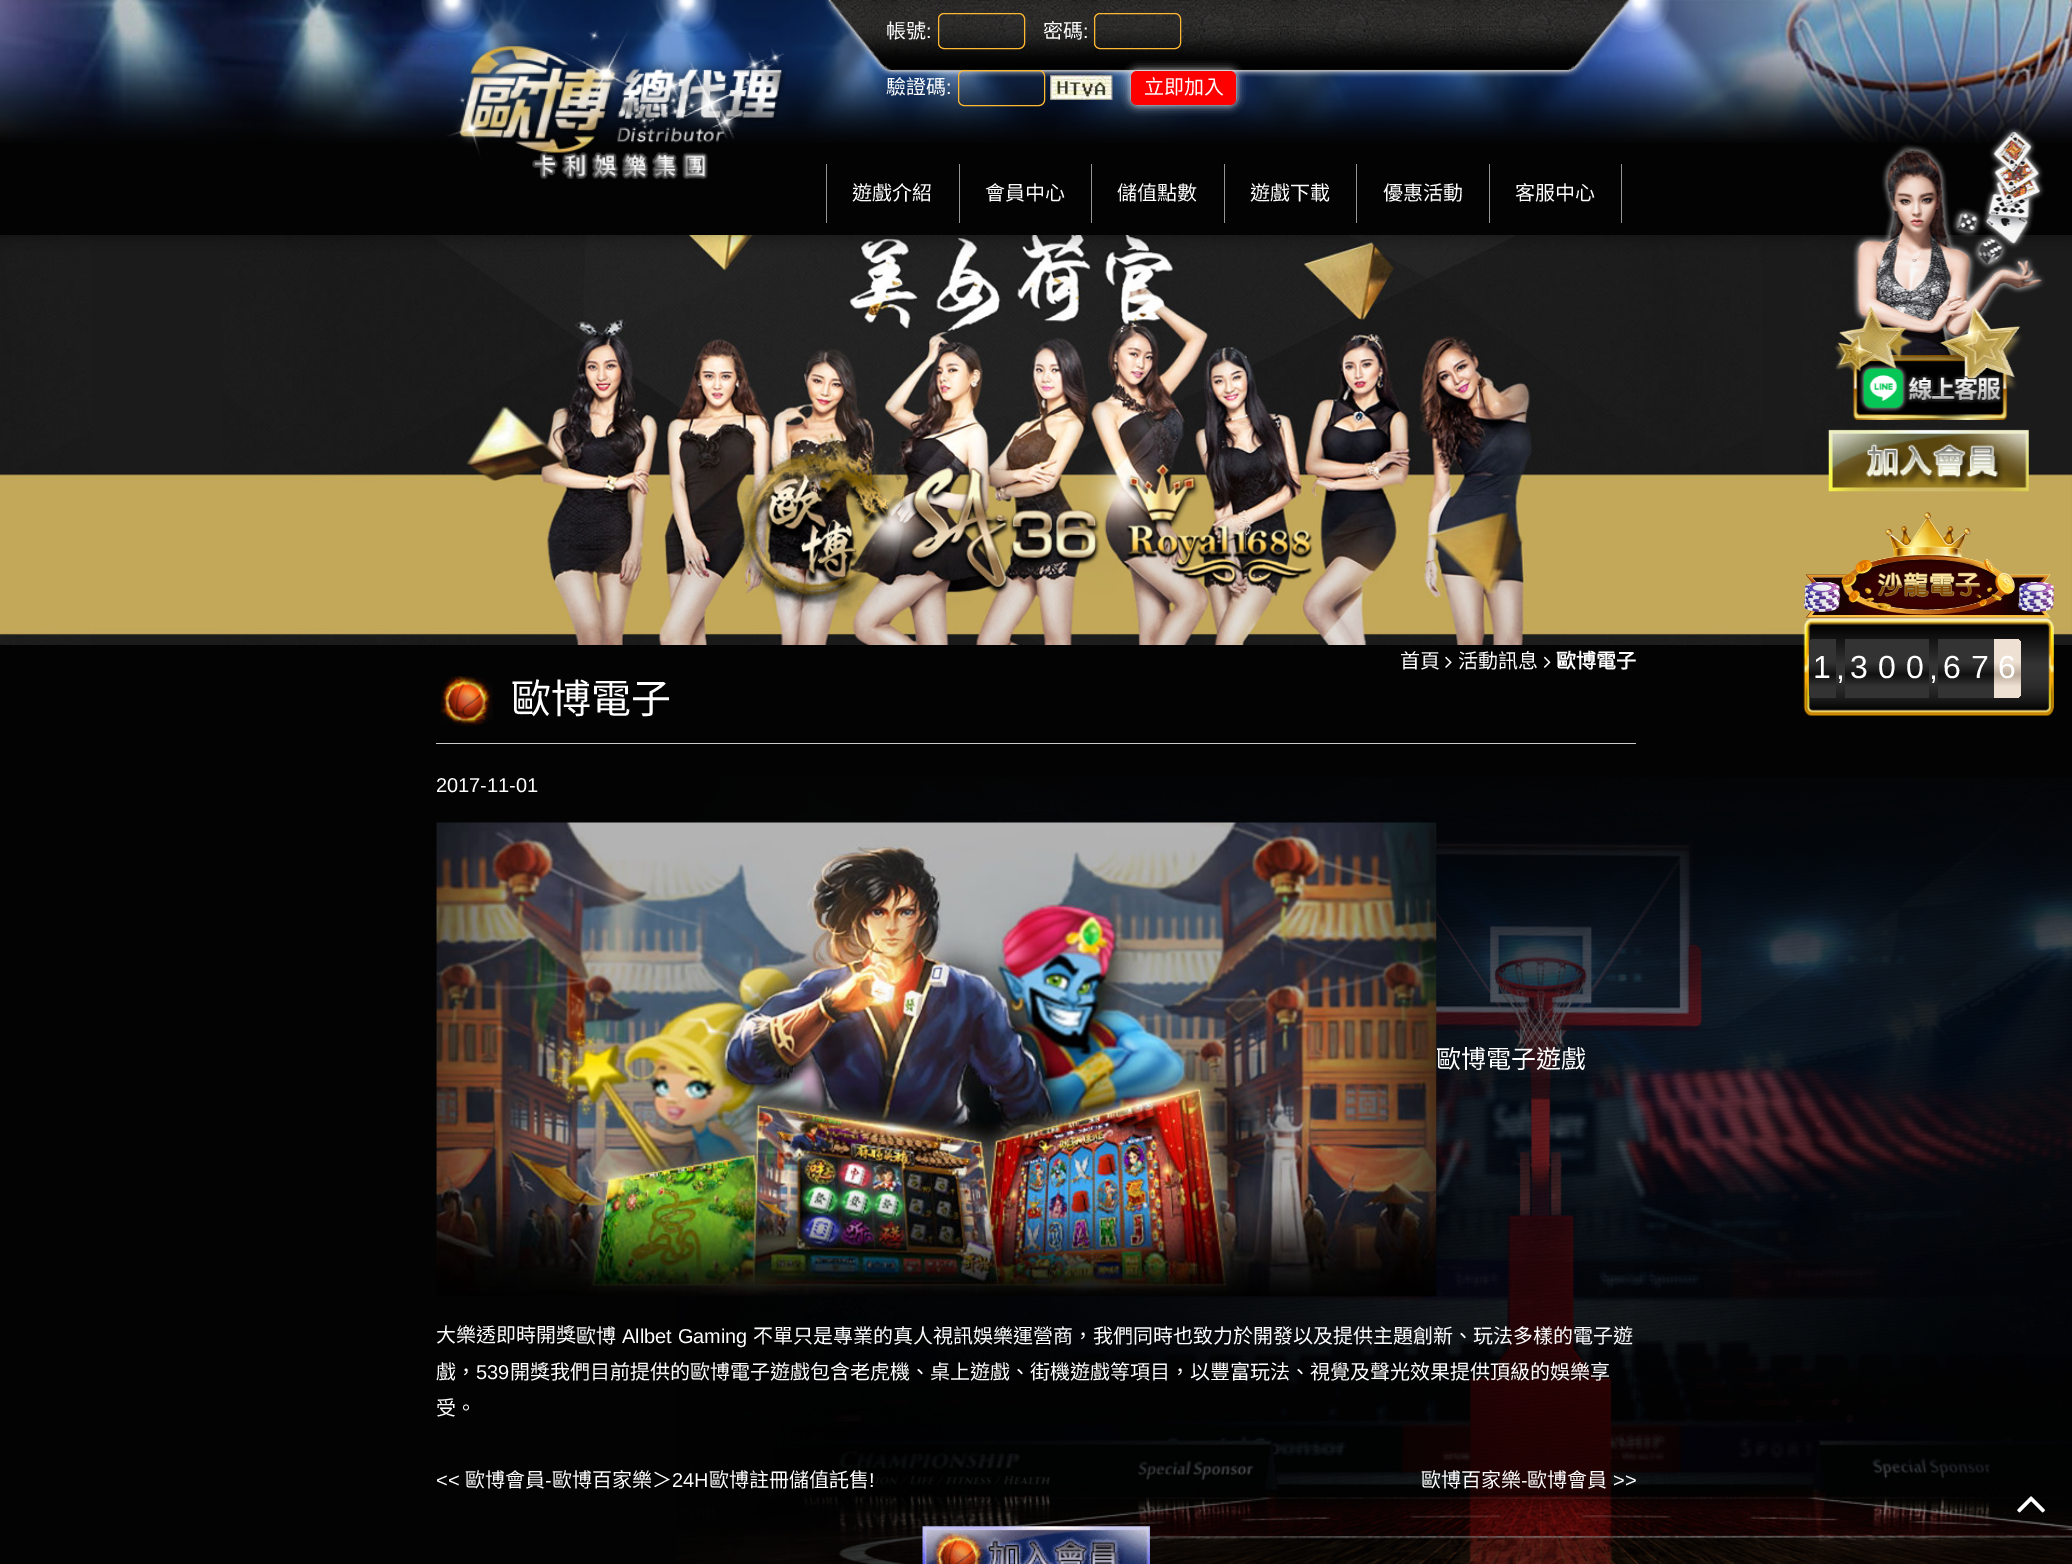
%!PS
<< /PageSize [2072 1564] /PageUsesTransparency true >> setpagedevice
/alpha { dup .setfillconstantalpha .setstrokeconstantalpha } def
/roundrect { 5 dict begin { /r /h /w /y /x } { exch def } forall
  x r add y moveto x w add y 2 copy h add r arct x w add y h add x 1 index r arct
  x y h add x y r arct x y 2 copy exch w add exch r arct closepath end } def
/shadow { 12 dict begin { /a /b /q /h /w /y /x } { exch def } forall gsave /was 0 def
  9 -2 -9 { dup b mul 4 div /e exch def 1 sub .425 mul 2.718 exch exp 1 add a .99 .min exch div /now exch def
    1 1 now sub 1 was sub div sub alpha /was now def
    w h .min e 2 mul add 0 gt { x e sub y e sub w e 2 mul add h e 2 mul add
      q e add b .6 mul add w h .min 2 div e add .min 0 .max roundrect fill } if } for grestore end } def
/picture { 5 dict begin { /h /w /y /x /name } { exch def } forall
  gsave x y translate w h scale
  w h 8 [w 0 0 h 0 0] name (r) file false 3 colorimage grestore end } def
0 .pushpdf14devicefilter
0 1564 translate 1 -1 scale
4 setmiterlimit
0.012 setgray
0 0 2072 1564 rectfill
(img1.rgb) 0 0 2072 143 picture
(img2.rgb) 825 0 806 77 picture
(img3.rgb) 447 28 339 151 picture
/NotoSansCJKTC-Regular [20 0 0 -20 0 0] selectfont
1 setgray
886 38 moveto (帳號) show
/LiberationSans-Regular [20 0 0 -20 0 0] selectfont
926 38 moveto (:) show
0.15 alpha
0.176 setgray
938.5 13.5 86 35 5.5 roundrect fill
1 alpha
1 0.722 0.196 setrgbcolor
938.5 13.5 86 35 5.5 roundrect stroke
/NotoSansCJKTC-Regular [20 0 0 -20 0 0] selectfont
1 setgray
1043 38 moveto (密碼) show
/LiberationSans-Regular [20 0 0 -20 0 0] selectfont
1083 38 moveto (:) show
0.15 alpha
0.176 setgray
1094.5 13.5 86 35 5.5 roundrect fill
1 alpha
1 0.722 0.196 setrgbcolor
1094.5 13.5 86 35 5.5 roundrect stroke
/NotoSansCJKTC-Regular [20 0 0 -20 0 0] selectfont
1 setgray
886 94 moveto (驗證碼) show
/LiberationSans-Regular [20 0 0 -20 0 0] selectfont
946 94 moveto (:) show
0.15 alpha
0.176 setgray
958.5 70.5 86 35 5.5 roundrect fill
1 alpha
1 0.722 0.196 setrgbcolor
958.5 70.5 86 35 5.5 roundrect stroke
(img4.rgb) 1050 75 63 25 picture
1 setgray
1131 71 105 34 6 4.5 1 shadow
1 0 0 setrgbcolor
1131 71 105 34 6 roundrect fill
/NotoSansCJKTC-Regular [20 0 0 -20 0 0] selectfont
1 setgray
1144 94 moveto (立即加入) show
0.588 0.584 0.584 setrgbcolor
1621 164 1 59 rectfill
0 setgray
825 164 1 59 rectfill
958 164 1 59 rectfill
0.588 0.584 0.584 setrgbcolor
826 164 1 59 rectfill
1 setgray
852 200 moveto (遊戲介紹) show
0 setgray
1090 164 1 59 rectfill
0.588 0.584 0.584 setrgbcolor
959 164 1 59 rectfill
1 setgray
985 200 moveto (會員中心) show
0 setgray
1223 164 1 59 rectfill
0.588 0.584 0.584 setrgbcolor
1091 164 1 59 rectfill
1 setgray
1117 200 moveto (儲值點數) show
0 setgray
1355 164 1 59 rectfill
0.588 0.584 0.584 setrgbcolor
1224 164 1 59 rectfill
1 setgray
1250 200 moveto (遊戲下載) show
0 setgray
1488 164 1 59 rectfill
0.588 0.584 0.584 setrgbcolor
1356 164 1 59 rectfill
1 setgray
1383 200 moveto (優惠活動) show
0 setgray
1620 164 1 59 rectfill
0.588 0.584 0.584 setrgbcolor
1489 164 1 59 rectfill
1 setgray
1515 200 moveto (客服中心) show
(img7.rgb) 0 235 2072 410 picture
(img5.rgb) 1834 127 211 293 picture
(img6.rgb) 1828 429 201 63 picture
(img8.rgb) 677 777 1395 787 picture
1400 668 moveto (首頁) show
(img9.rgb) 1445 656 7 12 picture
1458 668 moveto (活動訊息) show
(img10.rgb) 1543 656 8 12 picture
/NotoSansCJKTC-Bold [20 0 0 -20 0 0] selectfont
1556 668 moveto (歐博電子) show
(img11.rgb) 440 676 53 50 picture
0.8 setgray
436 743 1200 1 rectfill
/NotoSansCJKTC-Regular [40 0 0 -40 0 0] selectfont
1 setgray
511 713 moveto (歐博電子) show
/LiberationSans-Regular [20 0 0 -20 0 0] selectfont
436 792 moveto (2017-11-01) show
(img12.rgb) 436 822 1001 475 picture
/NotoSansCJKTC-Regular [25 0 0 -25 0 0] selectfont
1436 1068 moveto (歐博電子遊戲) show
/NotoSansCJKTC-Regular [20 0 0 -20 0 0] selectfont
436 1342 moveto (大樂透即時開獎) show
576 1343 moveto (歐博) show
/LiberationSans-Regular [20 0 0 -20 0 0] selectfont
622 1343 moveto (Allbet Gaming) show
/NotoSansCJKTC-Regular [20 0 0 -20 0 0] selectfont
753 1343 moveto (不單只是專業的真人視訊娛樂運營商，我們同時也致力於開發以及提供主題創新、玩法多樣的電子遊) show
436 1379 moveto (戲，) show
/LiberationSans-Regular [20 0 0 -20 0 0] selectfont
476 1379 moveto (539) show
/NotoSansCJKTC-Regular [20 0 0 -20 0 0] selectfont
510 1379 moveto (開獎我們目前提供的歐博電子遊戲包含老虎機、桌上遊戲、街機遊戲等項目，以豐富玩法、視覺及聲光效果提供頂級的娛樂享) show
436 1415 moveto (受。) show
/LiberationSans-Regular [20 0 0 -20 0 0] selectfont
436 1487 moveto (<<) show
/NotoSansCJKTC-Regular [20 0 0 -20 0 0] selectfont
465 1487 moveto (歐博會員) show
/LiberationSans-Regular [20 0 0 -20 0 0] selectfont
545 1487 moveto (-) show
/NotoSansCJKTC-Regular [20 0 0 -20 0 0] selectfont
552 1487 moveto (歐博百家樂＞) show
/LiberationSans-Regular [20 0 0 -20 0 0] selectfont
672 1487 moveto (24H) show
/NotoSansCJKTC-Regular [20 0 0 -20 0 0] selectfont
709 1487 moveto (歐博註冊儲值託售) show
/LiberationSans-Regular [20 0 0 -20 0 0] selectfont
869 1487 moveto (!) show
/NotoSansCJKTC-Regular [20 0 0 -20 0 0] selectfont
1421 1487 moveto (歐博百家樂) show
/LiberationSans-Regular [20 0 0 -20 0 0] selectfont
1521 1487 moveto (-) show
/NotoSansCJKTC-Regular [20 0 0 -20 0 0] selectfont
1527 1487 moveto (歐博會員) show
/LiberationSans-Regular [20 0 0 -20 0 0] selectfont
1613 1487 moveto (>>) show
(img13.rgb) 922 1526 228 38 picture
(img14.rgb) 1803 512 251 106 picture
(img15.rgb) 1803 617 251 99 picture
gsave newpath 1815 639 moveto 1836 639 lineto 1836 698 lineto 1815 698 lineto 1811.5 698 1809 695.5 1809 692 curveto 1809 645 lineto 1809 641.5 1811.5 639 1815 639 curveto closepath clip newpath
<< /ShadingType 2 /ColorSpace /DeviceRGB /Coords [1823 639 1823 698] /Extend [true true] /Function << /FunctionType 3 /Domain [0 1] /Functions [<< /FunctionType 2 /Domain [0 1] /C0 [0.2 0.2 0.2] /C1 [0.2 0.2 0.2] /N 1 >> << /FunctionType 2 /Domain [0 1] /C0 [0.2 0.2 0.2] /C1 [0.063 0.063 0.063] /N 1 >> << /FunctionType 2 /Domain [0 1] /C0 [0.063 0.063 0.063] /C1 [0.2 0.2 0.2] /N 1 >> << /FunctionType 2 /Domain [0 1] /C0 [0.2 0.2 0.2] /C1 [0.2 0.2 0.2] /N 1 >>] /Bounds [0.4 0.6 0.8] /Encode [0 1 0 1 0 1 0 1] >> >> shfill grestore
/LiberationSans-Regular [32 0 0 -32 0 0] selectfont
1813 678 moveto (1) show
1836 679 moveto (,) show
gsave newpath 1845 639 moveto 1874 639 lineto 1874 698 lineto 1845 698 lineto closepath clip newpath
<< /ShadingType 2 /ColorSpace /DeviceRGB /Coords [1859 639 1859 698] /Extend [true true] /Function << /FunctionType 3 /Domain [0 1] /Functions [<< /FunctionType 2 /Domain [0 1] /C0 [0.2 0.2 0.2] /C1 [0.2 0.2 0.2] /N 1 >> << /FunctionType 2 /Domain [0 1] /C0 [0.2 0.2 0.2] /C1 [0.063 0.063 0.063] /N 1 >> << /FunctionType 2 /Domain [0 1] /C0 [0.063 0.063 0.063] /C1 [0.2 0.2 0.2] /N 1 >> << /FunctionType 2 /Domain [0 1] /C0 [0.2 0.2 0.2] /C1 [0.2 0.2 0.2] /N 1 >>] /Bounds [0.4 0.6 0.8] /Encode [0 1 0 1 0 1 0 1] >> >> shfill grestore
1850 678 moveto (3) show
gsave newpath 1874 639 moveto 1901 639 lineto 1901 698 lineto 1874 698 lineto closepath clip newpath
<< /ShadingType 2 /ColorSpace /DeviceRGB /Coords [1888 639 1888 698] /Extend [true true] /Function << /FunctionType 3 /Domain [0 1] /Functions [<< /FunctionType 2 /Domain [0 1] /C0 [0.2 0.2 0.2] /C1 [0.2 0.2 0.2] /N 1 >> << /FunctionType 2 /Domain [0 1] /C0 [0.2 0.2 0.2] /C1 [0.063 0.063 0.063] /N 1 >> << /FunctionType 2 /Domain [0 1] /C0 [0.063 0.063 0.063] /C1 [0.2 0.2 0.2] /N 1 >> << /FunctionType 2 /Domain [0 1] /C0 [0.2 0.2 0.2] /C1 [0.2 0.2 0.2] /N 1 >>] /Bounds [0.4 0.6 0.8] /Encode [0 1 0 1 0 1 0 1] >> >> shfill grestore
1878 678 moveto (0) show
gsave newpath 1901 639 moveto 1929 639 lineto 1929 698 lineto 1901 698 lineto closepath clip newpath
<< /ShadingType 2 /ColorSpace /DeviceRGB /Coords [1915 639 1915 698] /Extend [true true] /Function << /FunctionType 3 /Domain [0 1] /Functions [<< /FunctionType 2 /Domain [0 1] /C0 [0.2 0.2 0.2] /C1 [0.2 0.2 0.2] /N 1 >> << /FunctionType 2 /Domain [0 1] /C0 [0.2 0.2 0.2] /C1 [0.063 0.063 0.063] /N 1 >> << /FunctionType 2 /Domain [0 1] /C0 [0.063 0.063 0.063] /C1 [0.2 0.2 0.2] /N 1 >> << /FunctionType 2 /Domain [0 1] /C0 [0.2 0.2 0.2] /C1 [0.2 0.2 0.2] /N 1 >>] /Bounds [0.4 0.6 0.8] /Encode [0 1 0 1 0 1 0 1] >> >> shfill grestore
1906 678 moveto (0) show
1929 679 moveto (,) show
gsave newpath 1938 639 moveto 1966 639 lineto 1966 698 lineto 1938 698 lineto closepath clip newpath
<< /ShadingType 2 /ColorSpace /DeviceRGB /Coords [1952 639 1952 698] /Extend [true true] /Function << /FunctionType 3 /Domain [0 1] /Functions [<< /FunctionType 2 /Domain [0 1] /C0 [0.2 0.2 0.2] /C1 [0.2 0.2 0.2] /N 1 >> << /FunctionType 2 /Domain [0 1] /C0 [0.2 0.2 0.2] /C1 [0.063 0.063 0.063] /N 1 >> << /FunctionType 2 /Domain [0 1] /C0 [0.063 0.063 0.063] /C1 [0.2 0.2 0.2] /N 1 >> << /FunctionType 2 /Domain [0 1] /C0 [0.2 0.2 0.2] /C1 [0.2 0.2 0.2] /N 1 >>] /Bounds [0.4 0.6 0.8] /Encode [0 1 0 1 0 1 0 1] >> >> shfill grestore
1943 678 moveto (6) show
gsave newpath 1966 639 moveto 1994 639 lineto 1994 698 lineto 1966 698 lineto closepath clip newpath
<< /ShadingType 2 /ColorSpace /DeviceRGB /Coords [1980 639 1980 698] /Extend [true true] /Function << /FunctionType 3 /Domain [0 1] /Functions [<< /FunctionType 2 /Domain [0 1] /C0 [0.2 0.2 0.2] /C1 [0.2 0.2 0.2] /N 1 >> << /FunctionType 2 /Domain [0 1] /C0 [0.2 0.2 0.2] /C1 [0.063 0.063 0.063] /N 1 >> << /FunctionType 2 /Domain [0 1] /C0 [0.063 0.063 0.063] /C1 [0.2 0.2 0.2] /N 1 >> << /FunctionType 2 /Domain [0 1] /C0 [0.2 0.2 0.2] /C1 [0.2 0.2 0.2] /N 1 >>] /Bounds [0.4 0.6 0.8] /Encode [0 1 0 1 0 1 0 1] >> >> shfill grestore
1971 678 moveto (7) show
gsave newpath 1994 639 moveto 2015 639 lineto 2018.5 639 2021 641.5 2021 645 curveto 2021 692 lineto 2021 695.5 2018.5 698 2015 698 curveto 1994 698 lineto closepath clip newpath
<< /ShadingType 2 /ColorSpace /DeviceRGB /Coords [2008 639 2008 698] /Extend [true true] /Function << /FunctionType 3 /Domain [0 1] /Functions [<< /FunctionType 2 /Domain [0 1] /C0 [0.933 0.878 0.827] /C1 [0.933 0.878 0.827] /N 1 >> << /FunctionType 2 /Domain [0 1] /C0 [0.933 0.878 0.827] /C1 [0.733 0.667 0.604] /N 1 >> << /FunctionType 2 /Domain [0 1] /C0 [0.733 0.667 0.604] /C1 [0.933 0.878 0.827] /N 1 >> << /FunctionType 2 /Domain [0 1] /C0 [0.933 0.878 0.827] /C1 [0.933 0.878 0.827] /N 1 >>] /Bounds [0.4 0.6 0.8] /Encode [0 1 0 1 0 1 0 1] >> >> shfill grestore
1998 678 moveto (6) show
(img16.rgb) 2017 1496 28 17 picture
.poppdf14devicefilter showpage
